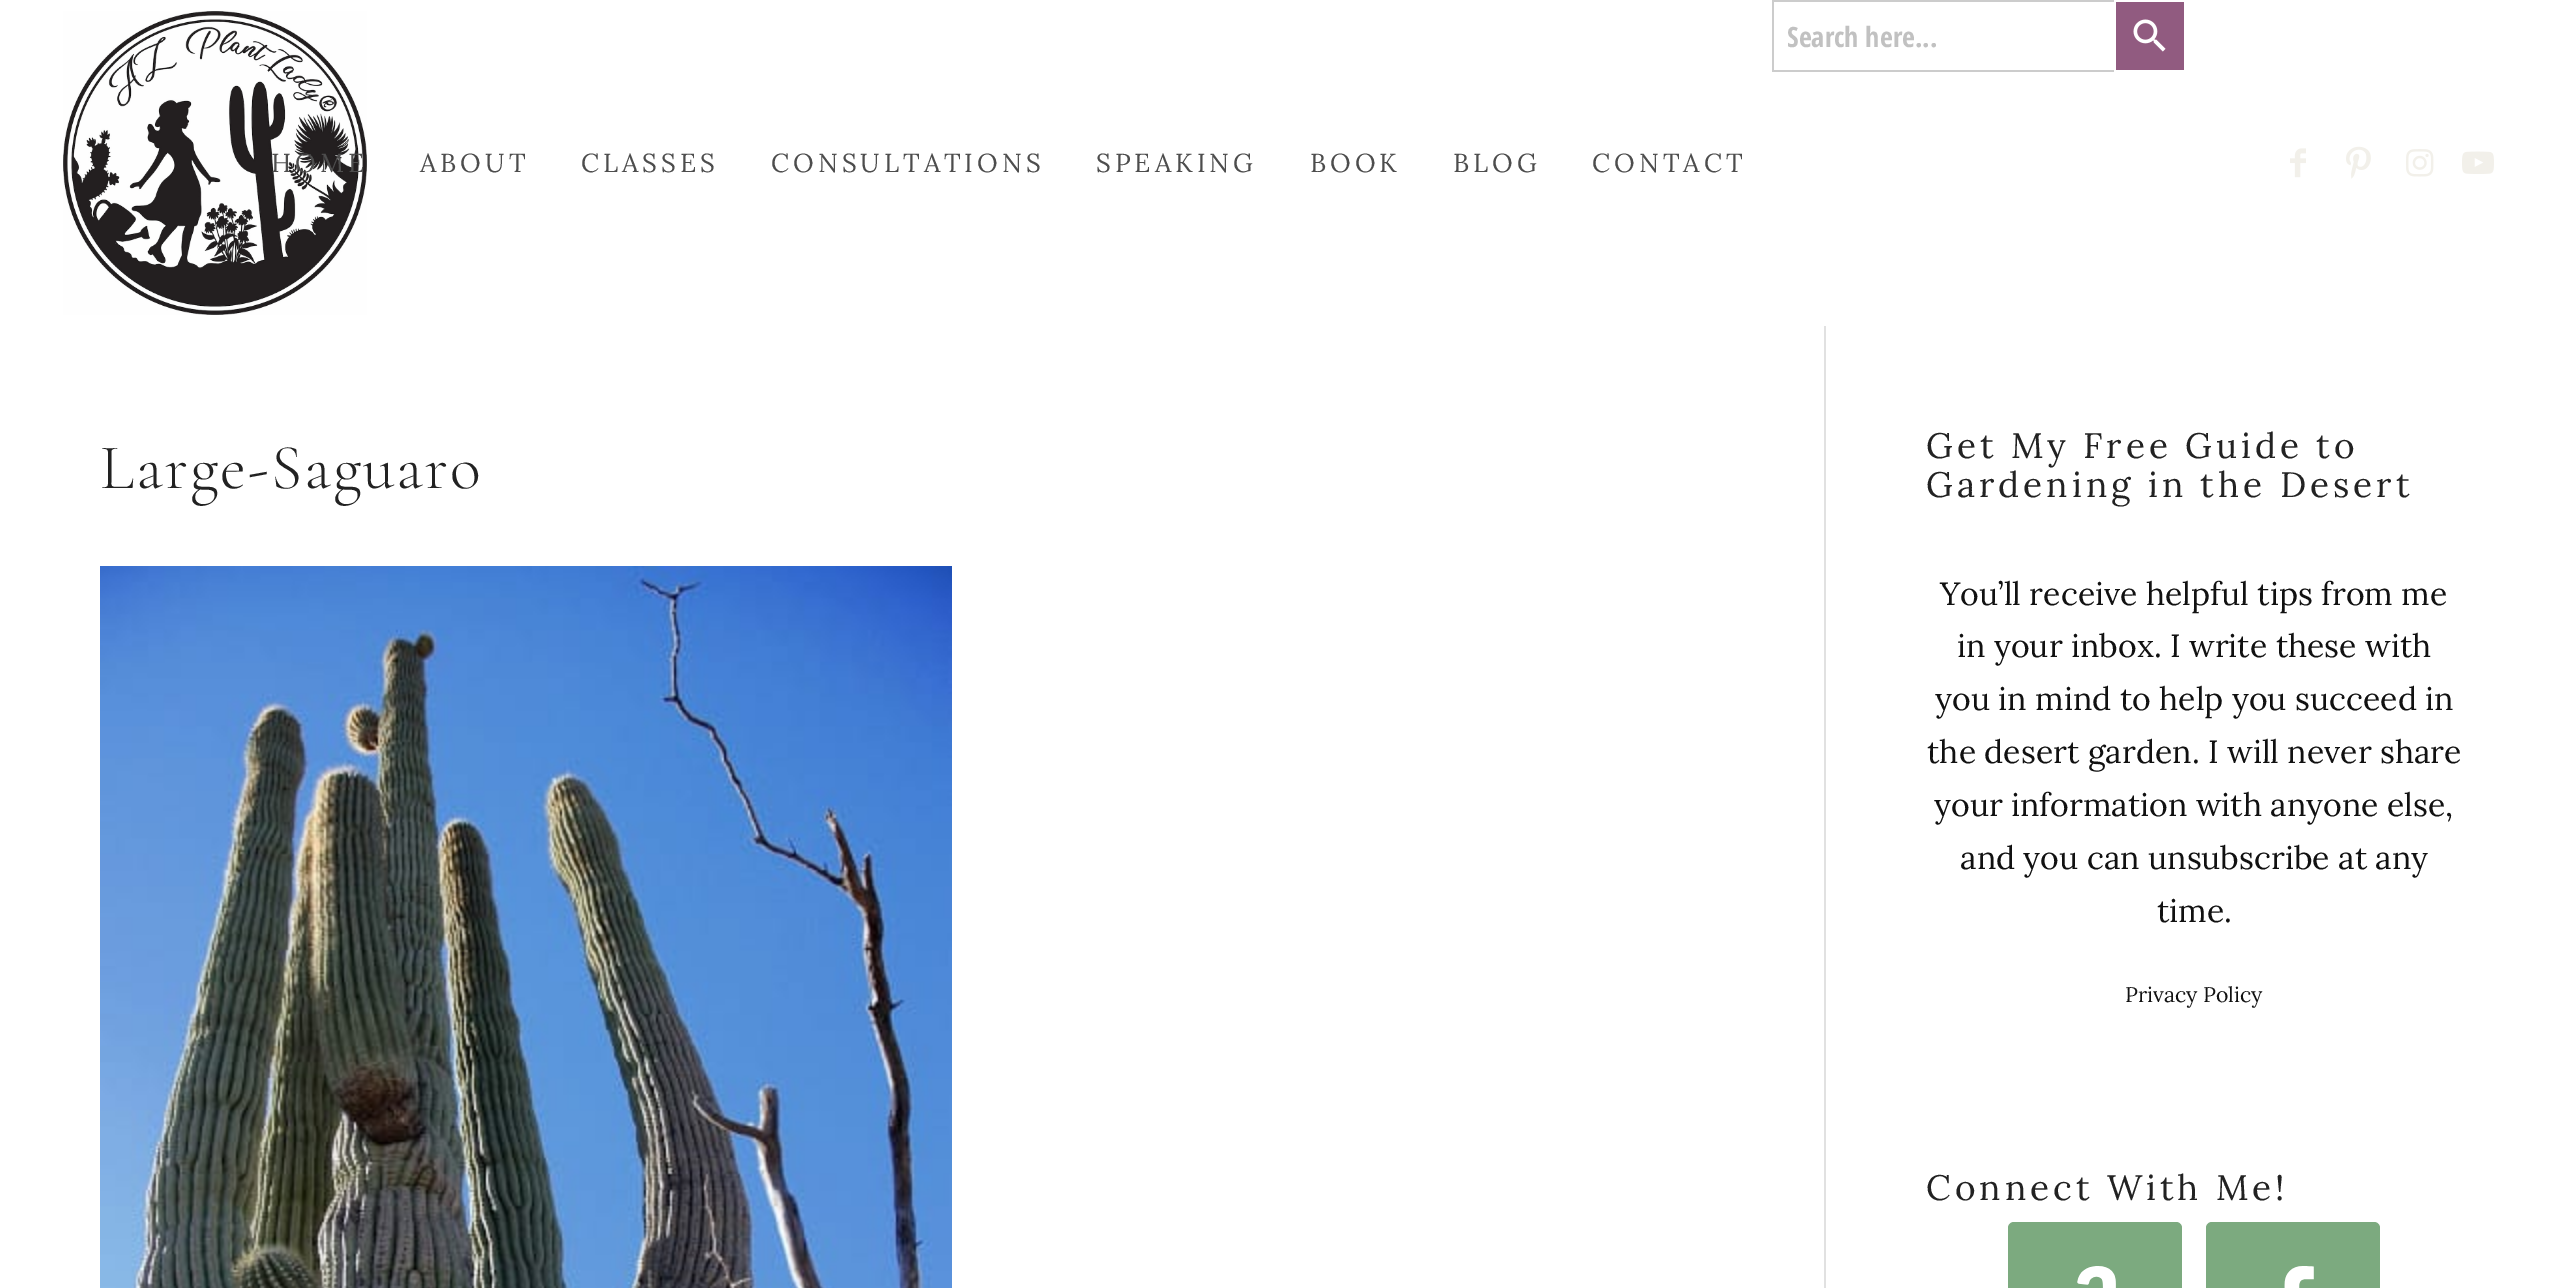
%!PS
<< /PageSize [2561 1288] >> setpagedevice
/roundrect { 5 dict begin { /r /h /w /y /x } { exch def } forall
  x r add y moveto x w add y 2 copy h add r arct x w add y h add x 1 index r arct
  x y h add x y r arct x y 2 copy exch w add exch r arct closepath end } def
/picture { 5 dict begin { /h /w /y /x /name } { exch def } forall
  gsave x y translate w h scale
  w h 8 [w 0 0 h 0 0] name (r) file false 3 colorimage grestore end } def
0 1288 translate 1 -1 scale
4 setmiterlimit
1 setgray
0 0 2561 1288 rectfill
(img1.rgb) 63 11 304 304 picture
0.8 setgray
1772 0 342 2 rectfill
1772 70 342 2 rectfill
1772 0 2 72 rectfill
/OpenSansCondensed-Bold [28 0 0 -28 0 0] selectfont
0.757 setgray
1787 47 moveto (Search here...) show
0.569 0.357 0.502 setrgbcolor
2116 2 68 68 rectfill
(img2.rgb) 2133 19 33 33 picture
/Lora-Regular [26 0 0 -26 0 0] selectfont
0.302 setgray
271 172 moveto 4 0 (HOME) ashow
420 172 moveto 4 0 (ABOUT) ashow
581 172 moveto 4 0 (CLASSES) ashow
771 172 moveto 4 0 (CONSULTATIONS) ashow
1096 172 moveto 4 0 (SPEAKING) ashow
1310 172 moveto 4 0 (BOOK) ashow
1453 172 moveto 4 0 (BLOG) ashow
1592 172 moveto 4 0 (CONTACT) ashow
(img3.rgb) 2290 148 16 30 picture
(img4.rgb) 2346 146 25 33 picture
(img5.rgb) 2406 149 28 28 picture
(img6.rgb) 2462 151 32 23 picture
0.882 setgray
1824 326 2 962 rectfill
/CormorantGaramond-Light [64 0 0 -64 0 0] selectfont
0.133 setgray
100 488 moveto 2 0 (Large-Saguaro) ashow
(img7.rgb) 100 566 852 722 picture
/Lora-Regular [35.25 0 0 -35.25 0 0] selectfont
1926 458 moveto 4 0 (Get My Free Guide to) ashow
1926 497 moveto 4 0 (Gardening in the Desert) ashow
/Lora-Regular [32 0 0 -32 0 0] selectfont
0.067 setgray
1940 605 moveto (You’ll receive helpful tips from me) show
1957 657 moveto (in your inbox. I write these with) show
1935 710 moveto (you in mind to help you succeed in) show
1927 763 moveto (the desert garden. I will never share) show
1934 816 moveto (your information with anyone else,) show
1960 869 moveto (and you can unsubscribe at any) show
2157 922 moveto (time.) show
/Lora-Regular [21.25 0 0 -21.25 0 0] selectfont
2125 1002 moveto (Privacy Policy) show
/Lora-Regular [35.25 0 0 -35.25 0 0] selectfont
0.133 setgray
1926 1200 moveto 4 0 (Connect With Me!) ashow
0.486 0.667 0.498 setrgbcolor
2008 1222 174 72 6 roundrect fill
(img8.rgb) 2077 1266 39 22 picture
2206 1222 174 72 6 roundrect fill
(img9.rgb) 2284 1266 30 22 picture
showpage
